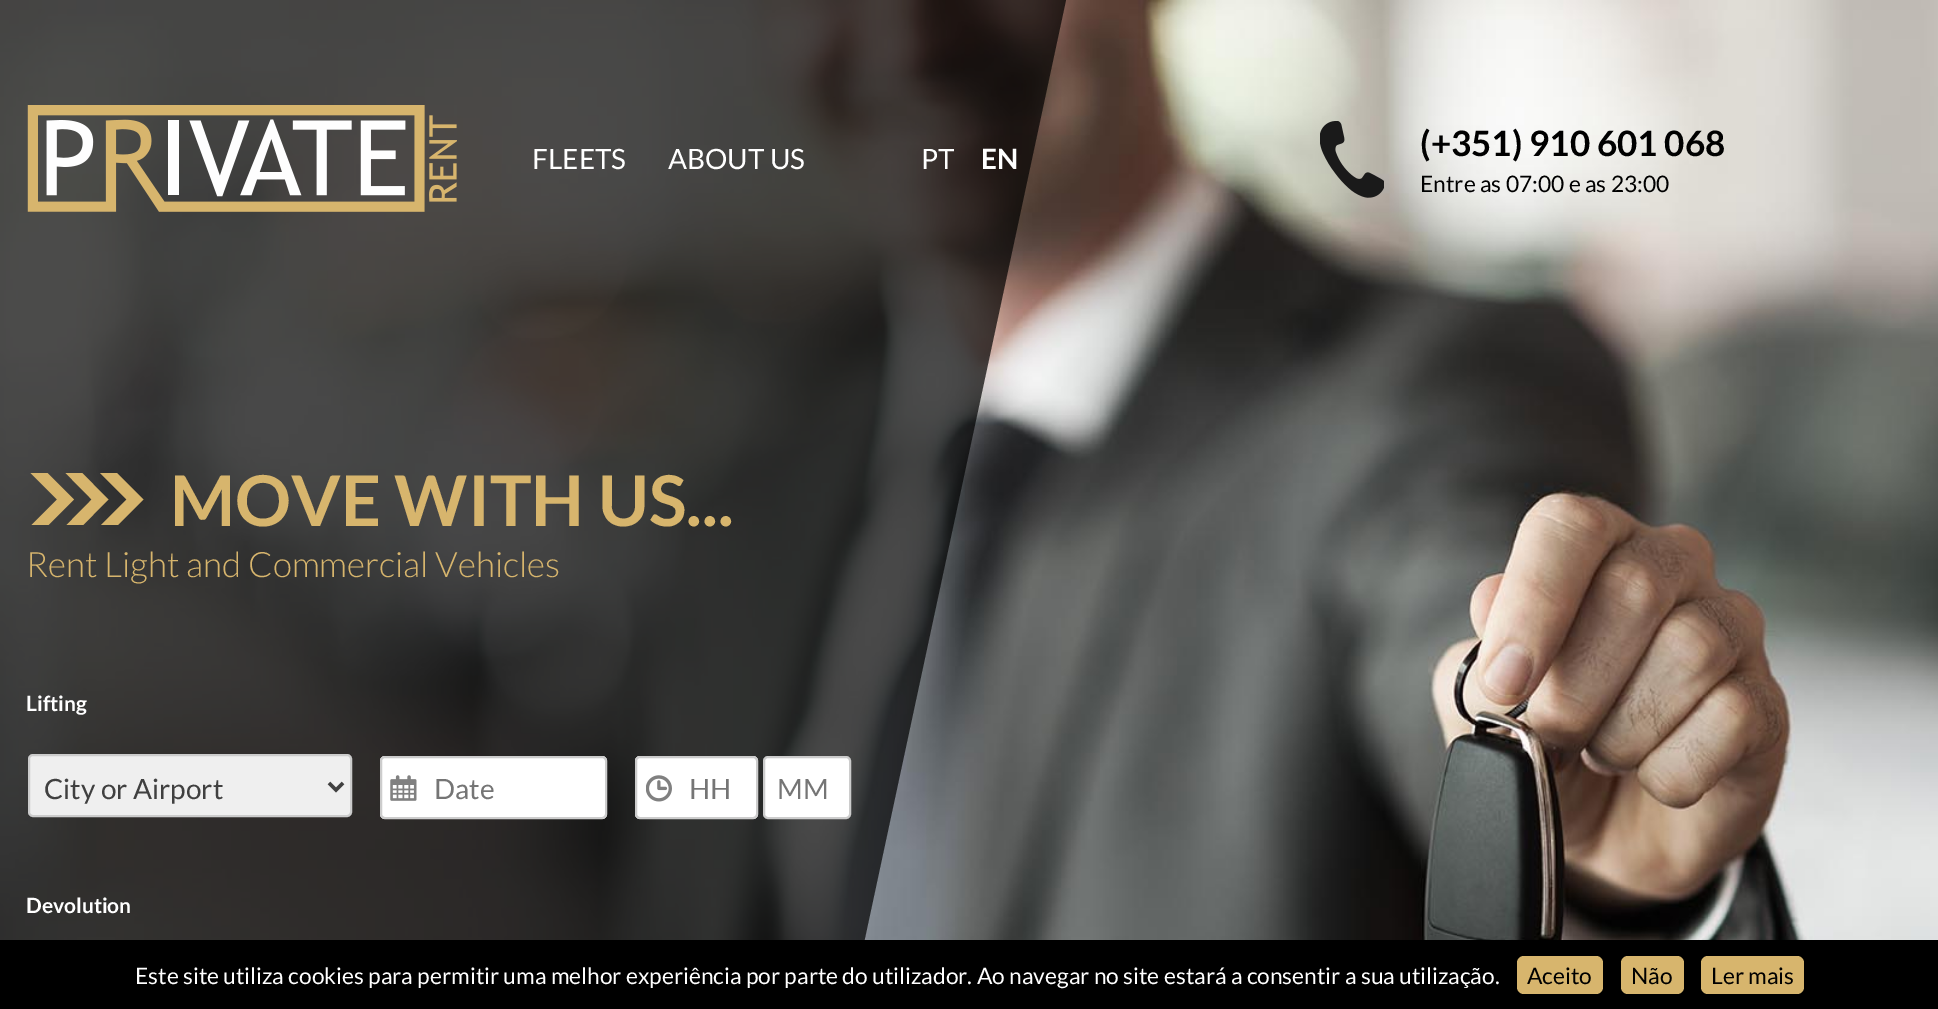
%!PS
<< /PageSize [1938 1009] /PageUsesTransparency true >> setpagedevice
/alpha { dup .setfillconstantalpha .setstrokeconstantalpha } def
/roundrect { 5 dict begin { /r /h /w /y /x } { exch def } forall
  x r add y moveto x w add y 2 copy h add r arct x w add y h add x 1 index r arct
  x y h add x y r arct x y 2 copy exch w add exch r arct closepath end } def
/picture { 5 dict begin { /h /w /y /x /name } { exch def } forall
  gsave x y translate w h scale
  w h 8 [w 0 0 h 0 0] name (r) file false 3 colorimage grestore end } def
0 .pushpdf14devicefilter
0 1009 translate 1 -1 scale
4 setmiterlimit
1 setgray
0 0 1938 1009 rectfill
(img1.rgb) 0 0 1938 940 picture
0.7 alpha
0 setgray
newpath 0 0 moveto 1066 0 lineto 847 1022 lineto 0 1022 lineto closepath fill
1 alpha
(img2.rgb) 27 105 430 107 picture
/Lato-Regular [28 0 0 -28 0 0] selectfont
1 setgray
532 169 moveto (FLEETS) show
668 169 moveto (ABOUT US) show
921 169 moveto (PT) show
/Lato-Bold [28 0 0 -28 0 0] selectfont
981 169 moveto (EN) show
(img3.rgb) 1320 121 64 77 picture
/Lato-Bold [35 0 0 -35 0 0] selectfont
0 setgray
1420 156 moveto (\(+351\) 910 601 068) show
/Lato-Regular [22.75 0 0 -22.75 0 0] selectfont
1420 192 moveto (Entre as 07:00 e as 23:00) show
gsave
26 473 118 52 rectclip
0.843 0.71 0.427 setrgbcolor
11.8 setlinewidth
newpath 65.5 464.5 moveto 100 499.5 lineto 65.5 534.5 lineto stroke
newpath 100 464.5 moveto 135 499.5 lineto 100 534.5 lineto stroke
newpath 30.5 464.5 moveto 65.5 499.5 lineto 30.5 534.5 lineto stroke
grestore
/Lato-Bold [70 0 0 -70 0 0] selectfont
0.843 0.71 0.427 setrgbcolor
170 526 moveto (MOVE WITH US...) show
/Lato-Light [35 0 0 -35 0 0] selectfont
26 577 moveto (Rent Light and Commercial Vehicles) show
/Lato-Bold [21 0 0 -21 0 0] selectfont
1 setgray
26 711 moveto (Lifting) show
0.937 setgray
29 755 322 61 4 roundrect gsave fill grestore
0.8 setgray
2 setlinewidth
stroke
0.251 setgray
3.5 setlinewidth
newpath 329 783 moveto 336 790 lineto 343 783 lineto stroke
/Lato-Regular [28 0 0 -28 0 0] selectfont
44 799 moveto (City or Airport) show
1 setgray
380 756 227 63 5 roundrect fill
(img4.rgb) 390 775 27 26 picture
0.8 setgray
2 setlinewidth
381 757 225 61 4 roundrect stroke
0.459 setgray
434 799 moveto (Date) show
1 setgray
635 756 123 63 5 roundrect fill
(img5.rgb) 646 775 26 27 picture
0.8 setgray
636 757 121 61 4 roundrect stroke
0.459 setgray
689 799 moveto (HH) show
1 setgray
764 757 86 61 4 roundrect gsave fill grestore
0.8 setgray
stroke
0.459 setgray
777 799 moveto (MM) show
/Lato-Bold [21 0 0 -21 0 0] selectfont
1 setgray
26 913 moveto (Devolution) show
0 setgray
0 940 1938 69 rectfill
/Lato-Regular [22.75 0 0 -22.75 0 0] selectfont
1 setgray
135 984 moveto (Este site utiliza cookies para permitir uma melhor experiência por parte do utilizador. Ao navegar no site estará a consentir a sua utilização.) show
0.843 0.71 0.427 setrgbcolor
1517 956 86 38 7 roundrect fill
0 setgray
1527 984 moveto (Aceito) show
0.843 0.71 0.427 setrgbcolor
1621 956 63 38 7 roundrect fill
0 setgray
1631 984 moveto (Não) show
0.843 0.71 0.427 setrgbcolor
1701 956 103 38 7 roundrect fill
0 setgray
1711 984 moveto (Ler mais) show
.poppdf14devicefilter showpage
